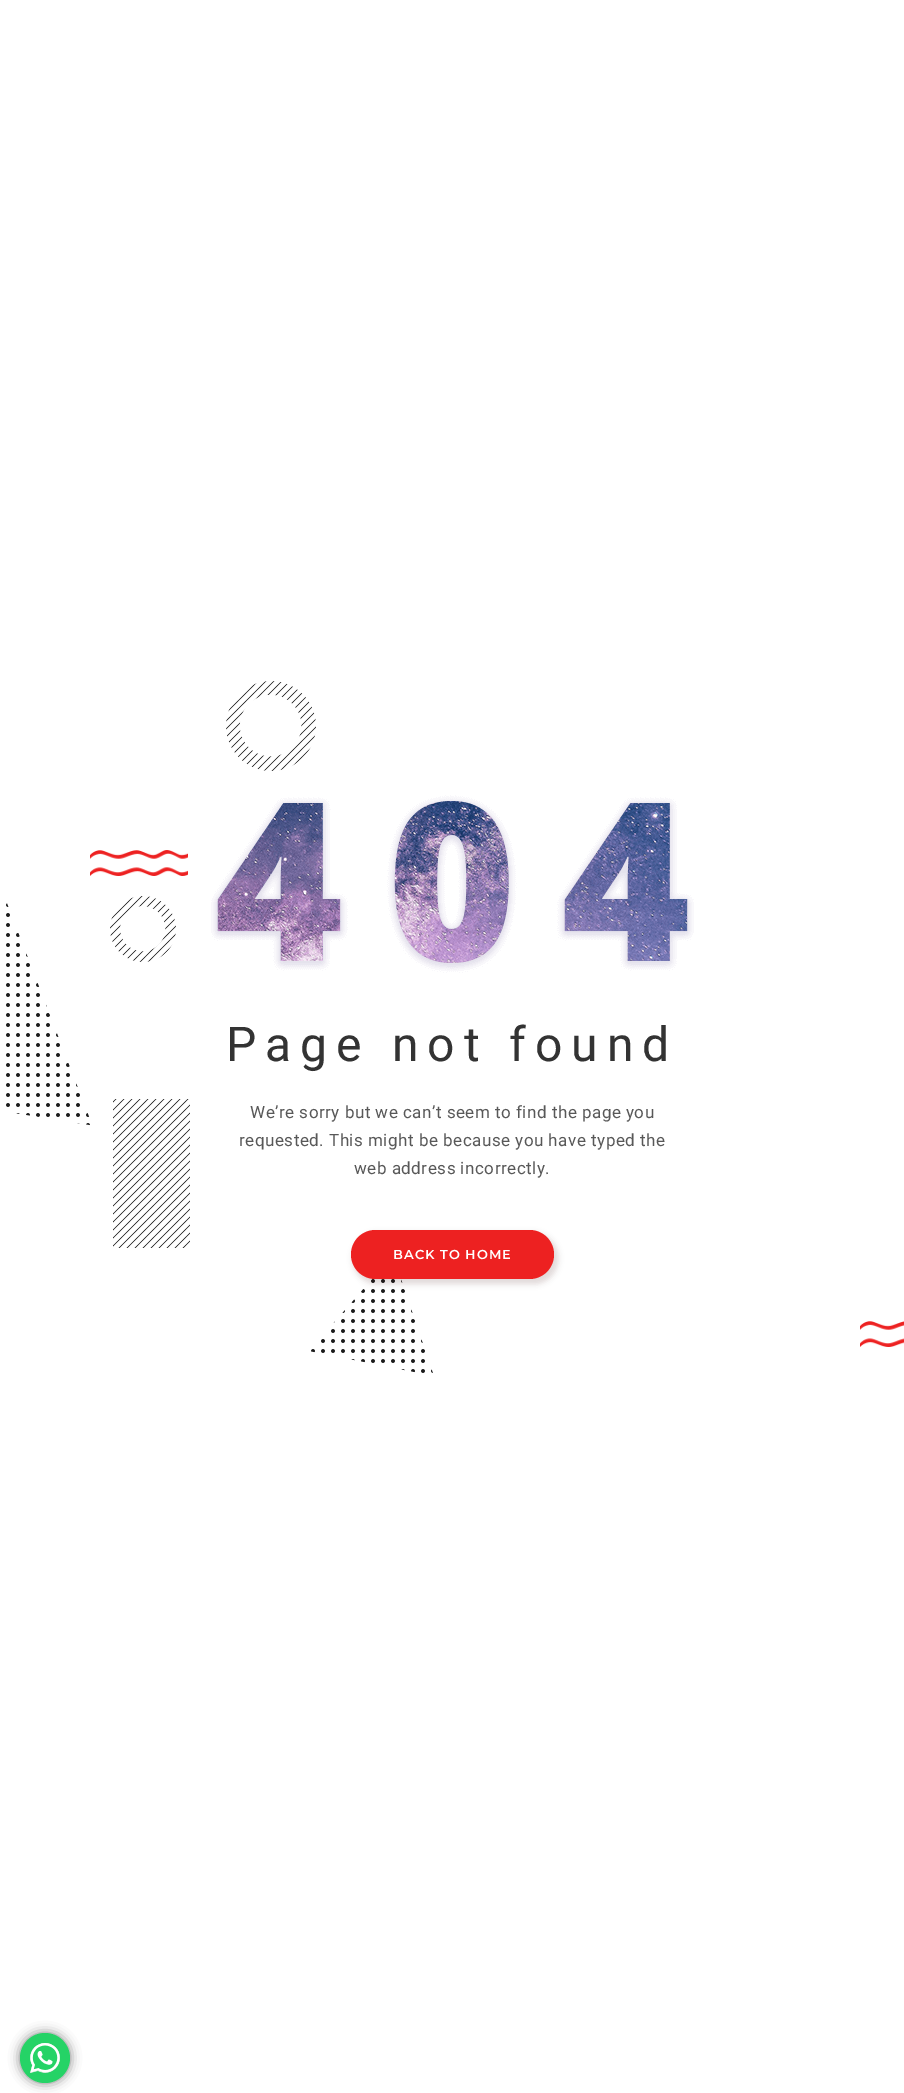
%!PS
<< /PageSize [904 2093] /PageUsesTransparency true >> setpagedevice
/alpha { dup .setfillconstantalpha .setstrokeconstantalpha } def
/roundrect { 5 dict begin { /r /h /w /y /x } { exch def } forall
  x r add y moveto x w add y 2 copy h add r arct x w add y h add x 1 index r arct
  x y h add x y r arct x y 2 copy exch w add exch r arct closepath end } def
/shadow { 12 dict begin { /a /b /q /h /w /y /x } { exch def } forall gsave /was 0 def
  9 -2 -9 { dup b mul 4 div /e exch def 1 sub .425 mul 2.718 exch exp 1 add a .99 .min exch div /now exch def
    1 1 now sub 1 was sub div sub alpha /was now def
    w h .min e 2 mul add 0 gt { x e sub y e sub w e 2 mul add h e 2 mul add
      q e add b .6 mul add w h .min 2 div e add .min 0 .max roundrect fill } if } for grestore end } def
/picture { 5 dict begin { /h /w /y /x /name } { exch def } forall
  gsave x y translate w h scale
  w h 8 [w 0 0 h 0 0] name (r) file false 3 colorimage grestore end } def
0 .pushpdf14devicefilter
0 2093 translate 1 -1 scale
4 setmiterlimit
1 setgray
0 0 904 2093 rectfill
(img1.rgb) 226 681 90 90 picture
(img2.rgb) 90 850 98 26 picture
(img3.rgb) 211 795 483 178 picture
(img4.rgb) 6 903 84 223 picture
(img5.rgb) 110 896 66 66 picture
/Roboto-Regular [48 0 0 -48 0 0] selectfont
0.2 setgray
226 1061 moveto 9 0 (Page not found) ashow
(img6.rgb) 113 1099 77 149 picture
/Roboto-Regular [17 0 0 -17 0 0] selectfont
0.345 setgray
250 1118 moveto 0.5 0 (We’re sorry but we can’t seem to find the page you) ashow
239 1146 moveto 0.5 0 (requested. This might be because you have typed the) ashow
354 1174 moveto 0.5 0 (web address incorrectly.) ashow
(img7.rgb) 311 1278 122 95 picture
0.204 0 0 setrgbcolor
353 1233 205 51 25.5 3 0.15 shadow
0.929 0.129 0.129 setrgbcolor
351 1230 203 49 24.5 roundrect fill
/Montserrat-SemiBold [13 0 0 -13 0 0] selectfont
1 setgray
393 1259 moveto 1 0 (BACK TO HOME) ashow
(img8.rgb) 860 1321 44 26 picture
0 setgray
20 2033 50 50 25 5.5 0.5 shadow
0.145 0.827 0.4 setrgbcolor
newpath 45 2058 25 0 360 arc closepath fill
(img9.rgb) 30 2043 30 30 picture
.poppdf14devicefilter showpage
